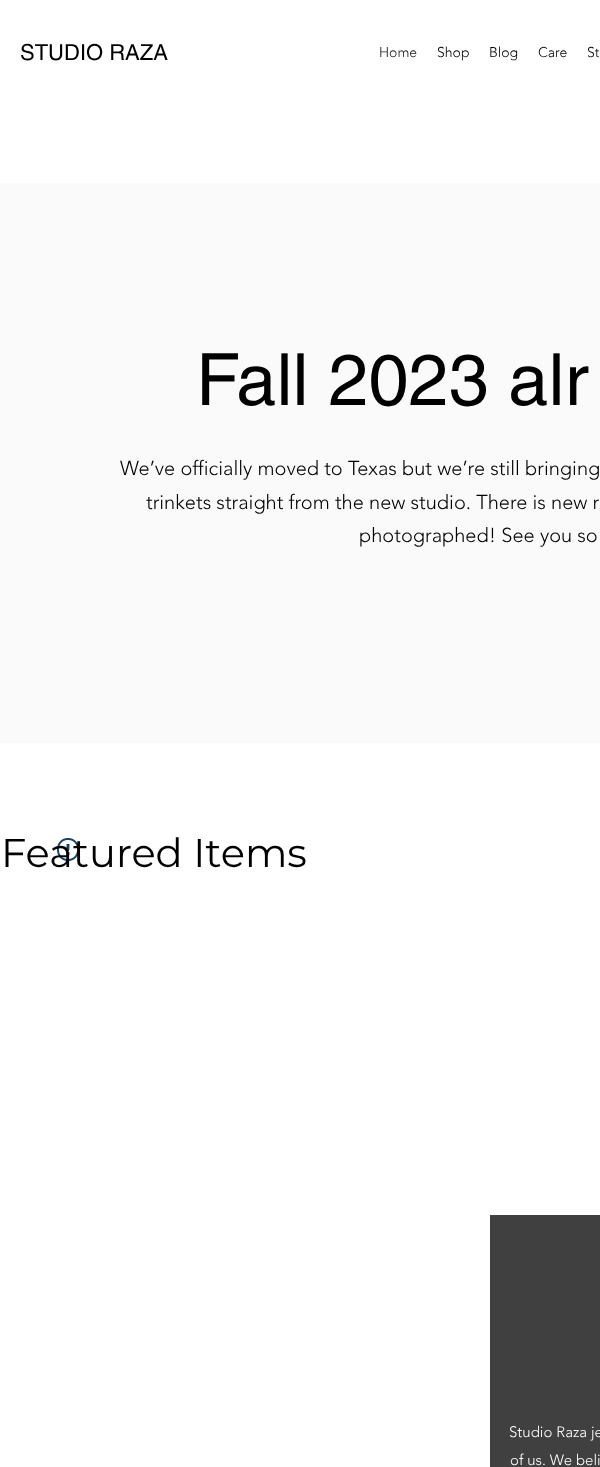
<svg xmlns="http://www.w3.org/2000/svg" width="600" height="1467">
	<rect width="100%" height="100%" fill="#FFFFFF" />
	<text x="20" y="60" font-family="helvetica" font-size="22" fill="#000000">STUDIO RAZA</text>
	<text x="379" y="57" font-family="'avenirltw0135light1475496'" font-size="14" font-weight="300" fill="#191919">Home</text>
	<g font-family="'avenirltw0135light1475496'" font-size="14" font-weight="300" fill="#000000">
		<text x="437" y="57">Shop</text>
		<text x="489" y="57">Blog</text>
		<text x="538" y="57">Care</text>
		<text x="587" y="57">St</text>
	</g>
	<rect x="0" y="183" width="600" height="560" fill="#FAFAFA" />
	<text x="196" y="405" font-family="helvetica" font-size="72" fill="#000000">Fall 2023 alr</text>
	<g font-family="'avenirltw0135light1475496'" font-size="20" font-weight="300" fill="#000000">
		<text x="120" y="475">We’ve officially moved to Texas but we’re still bringing</text>
		<text x="146" y="509">trinkets straight from the new studio. There is new r</text>
		<text x="359" y="542">photographed! See you so</text>
	</g>
	<image x="57" y="838" width="22" height="23" href="assets/img1.png" />
	<text x="1" y="867" font-family="Montserrat" font-size="40" fill="#000000">Featured Items</text>
	<rect x="490" y="1215" width="110" height="252" fill="#404040" />
	<g font-family="'avenirltw0135light1475496'" font-size="15" font-weight="300" fill="#FFFFFF">
		<text x="509" y="1437">Studio Raza je</text>
		<text x="510" y="1465">of us. We beli</text>
	</g>
</svg>
